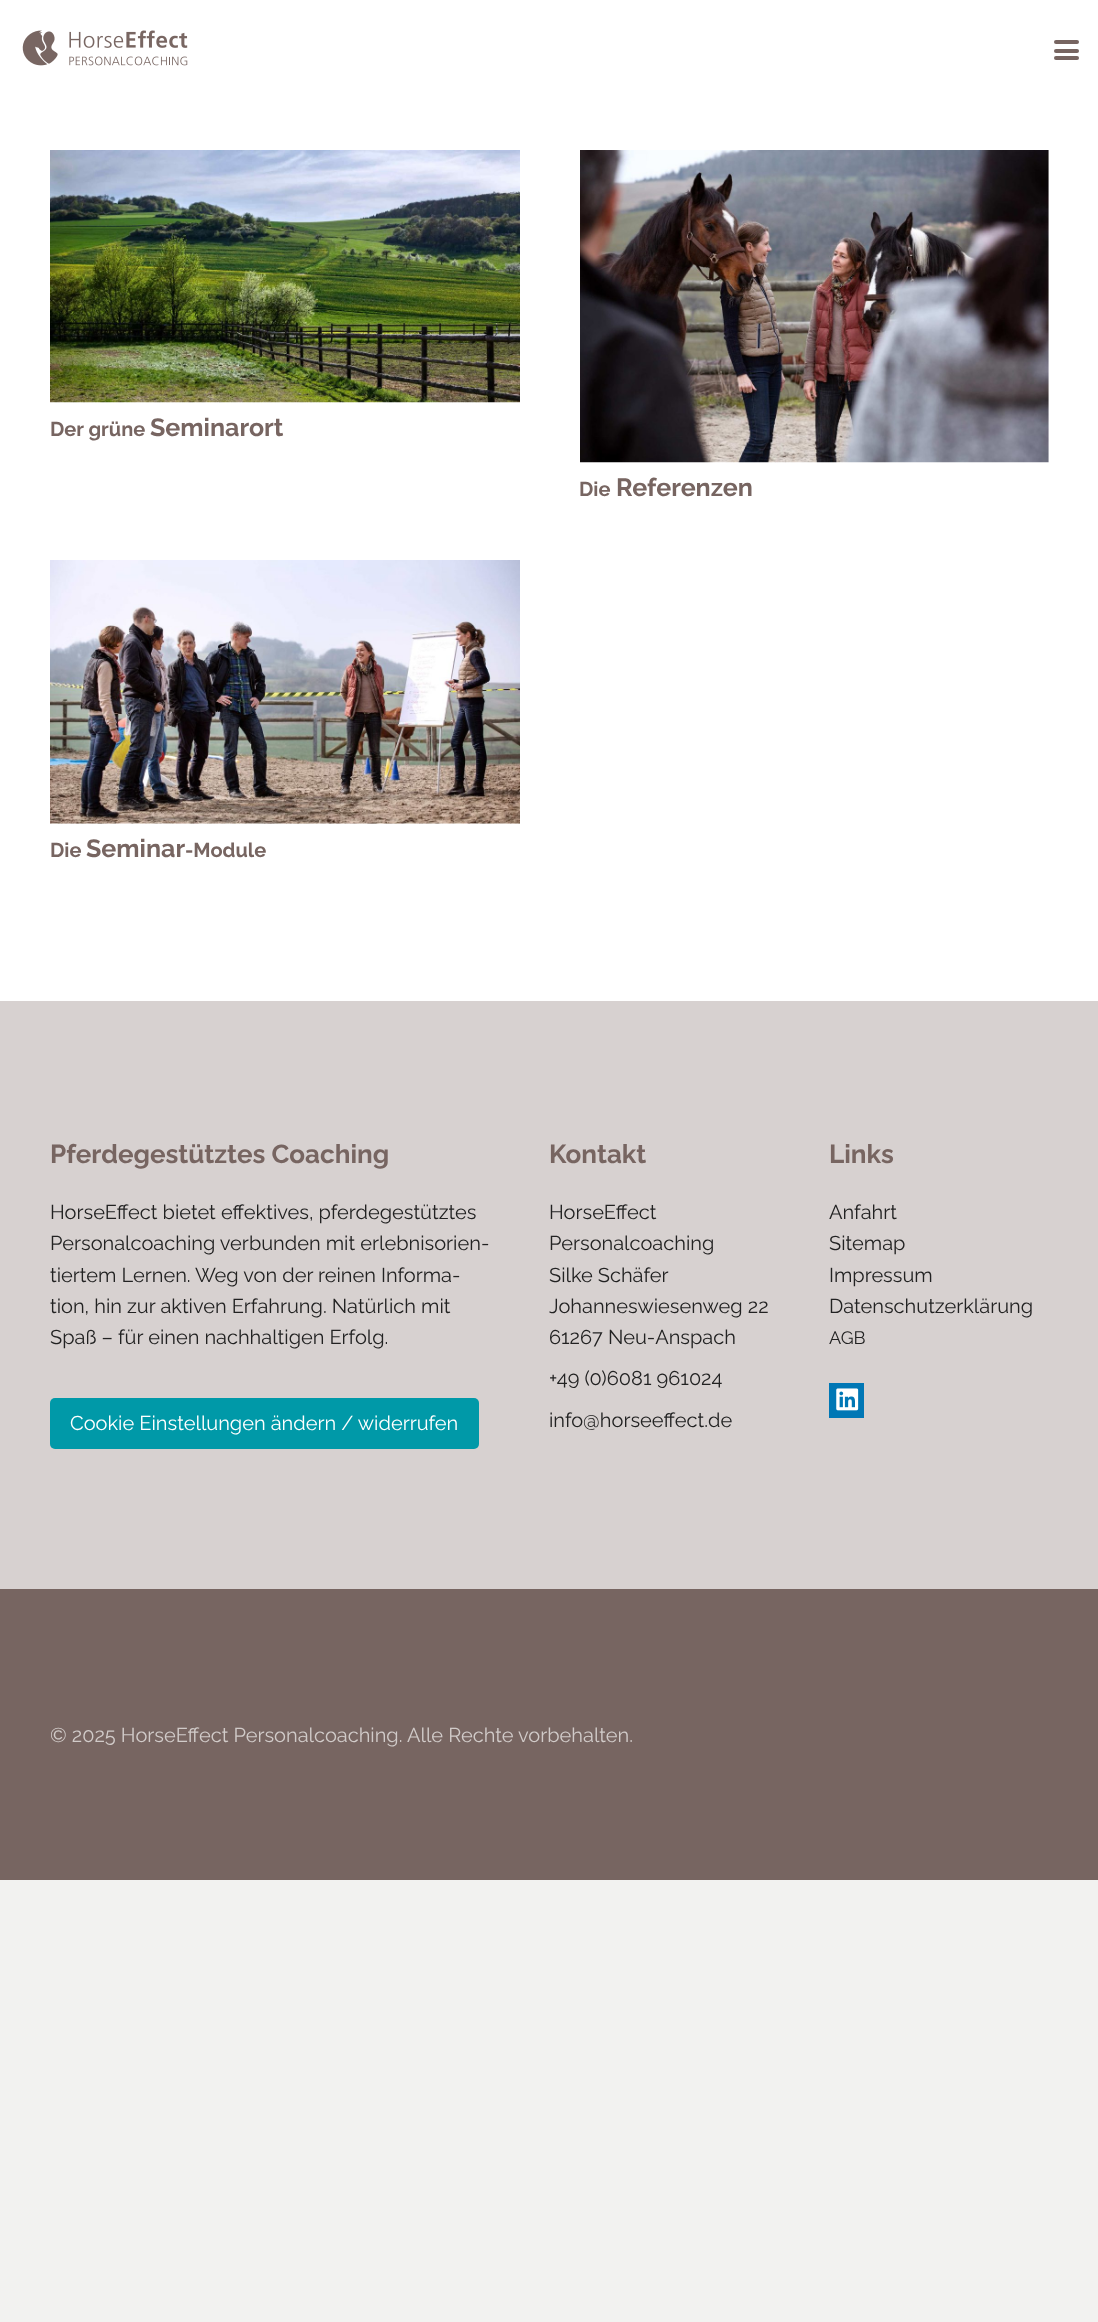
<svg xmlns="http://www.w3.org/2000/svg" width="1098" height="2322">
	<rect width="100%" height="100%" fill="#F2F2F0" />
	<rect x="0" y="0" width="1098" height="1001" fill="#FFFFFF" />
	<image x="22" y="30" width="166" height="36" href="assets/img1.png" />
	<rect x="1054" y="49" width="25" height="4" rx="2" fill="#776561" />
	<rect x="1054" y="40" width="25" height="4" rx="2" fill="#776561" />
	<rect x="1054" y="56" width="25" height="4" rx="2" fill="#776561" />
	<image x="50" y="150" width="470" height="253" href="assets/img2.png" />
	<text x="50" y="436" font-family="Raleway" font-size="20" font-weight="700" fill="#776561">Der grüne</text>
	<text x="150" y="436" font-family="Raleway" font-size="25" font-weight="700" fill="#776561">Seminarort</text>
	<image x="580" y="150" width="469" height="313" href="assets/img3.png" />
	<text x="579" y="496" font-family="Raleway" font-size="20" font-weight="700" fill="#776561">Die</text>
	<text x="616" y="496" font-family="Raleway" font-size="25" font-weight="700" fill="#776561">Referenzen</text>
	<image x="50" y="560" width="470" height="264" href="assets/img4.png" />
	<text x="50" y="857" font-family="Raleway" font-size="20" font-weight="700" fill="#776561">Die</text>
	<text x="86" y="857" font-family="Raleway" font-size="25" font-weight="700" fill="#776561">Seminar</text>
	<text x="185" y="857" font-family="Raleway" font-size="20" font-weight="700" fill="#776561">-Module</text>
	<rect x="0" y="1001" width="1098" height="588" fill="#D7D1D0" />
	<text x="50" y="1163" font-family="Raleway" font-size="26" font-weight="700" fill="#776561">Pferdegestütztes Coaching</text>
	<g font-family="Raleway" font-size="20" fill="#222222">
		<text x="50" y="1219">HorseEffect bietet effektives, pferdegestütztes</text>
		<text x="50" y="1250">Personalcoaching verbunden mit erlebnisorien-</text>
		<text x="50" y="1282">tiertem Lernen. Weg von der reinen Informa-</text>
		<text x="50" y="1313">tion, hin zur aktiven Erfahrung. Natürlich mit</text>
		<text x="50" y="1344">Spaß – für einen nachhaltigen Erfolg.</text>
	</g>
	<rect x="50" y="1398" width="429" height="51" rx="5" fill="#0099A8" />
	<text x="70" y="1430" font-family="Raleway" font-size="20" fill="#FFFFFF">Cookie Einstellungen ändern / widerrufen</text>
	<text x="549" y="1163" font-family="Raleway" font-size="26" font-weight="700" fill="#776561">Kontakt</text>
	<g font-family="Raleway" font-size="20" fill="#222222">
		<text x="549" y="1219">HorseEffect</text>
		<text x="549" y="1250">Personalcoaching</text>
		<text x="549" y="1282">Silke Schäfer</text>
		<text x="549" y="1313">Johanneswiesenweg 22</text>
		<text x="549" y="1344">61267 Neu-Anspach</text>
		<text x="549" y="1385">+49 (0)6081 961024</text>
		<text x="549" y="1427">info@horseeffect.de</text>
	</g>
	<text x="829" y="1163" font-family="Raleway" font-size="26" font-weight="700" fill="#776561">Links</text>
	<g font-family="Raleway" font-size="20" fill="#222222">
		<text x="829" y="1219">Anfahrt</text>
		<text x="829" y="1250">Sitemap</text>
		<text x="829" y="1282">Impressum</text>
		<text x="829" y="1313">Datenschutzerklärung</text>
	</g>
	<text x="829" y="1344" font-family="Raleway" font-size="18" fill="#222222">AGB</text>
	<rect x="829" y="1383" width="35" height="35" fill="#0077B5" />
	<image x="836" y="1388" width="23" height="23" href="assets/img5.png" />
	<rect x="0" y="1589" width="1098" height="291" fill="#776561" />
	<text x="50" y="1742" font-family="Raleway" font-size="20" fill="#D1CBC9">© 2025 HorseEffect Personalcoaching. Alle Rechte vorbehalten.</text>
</svg>
